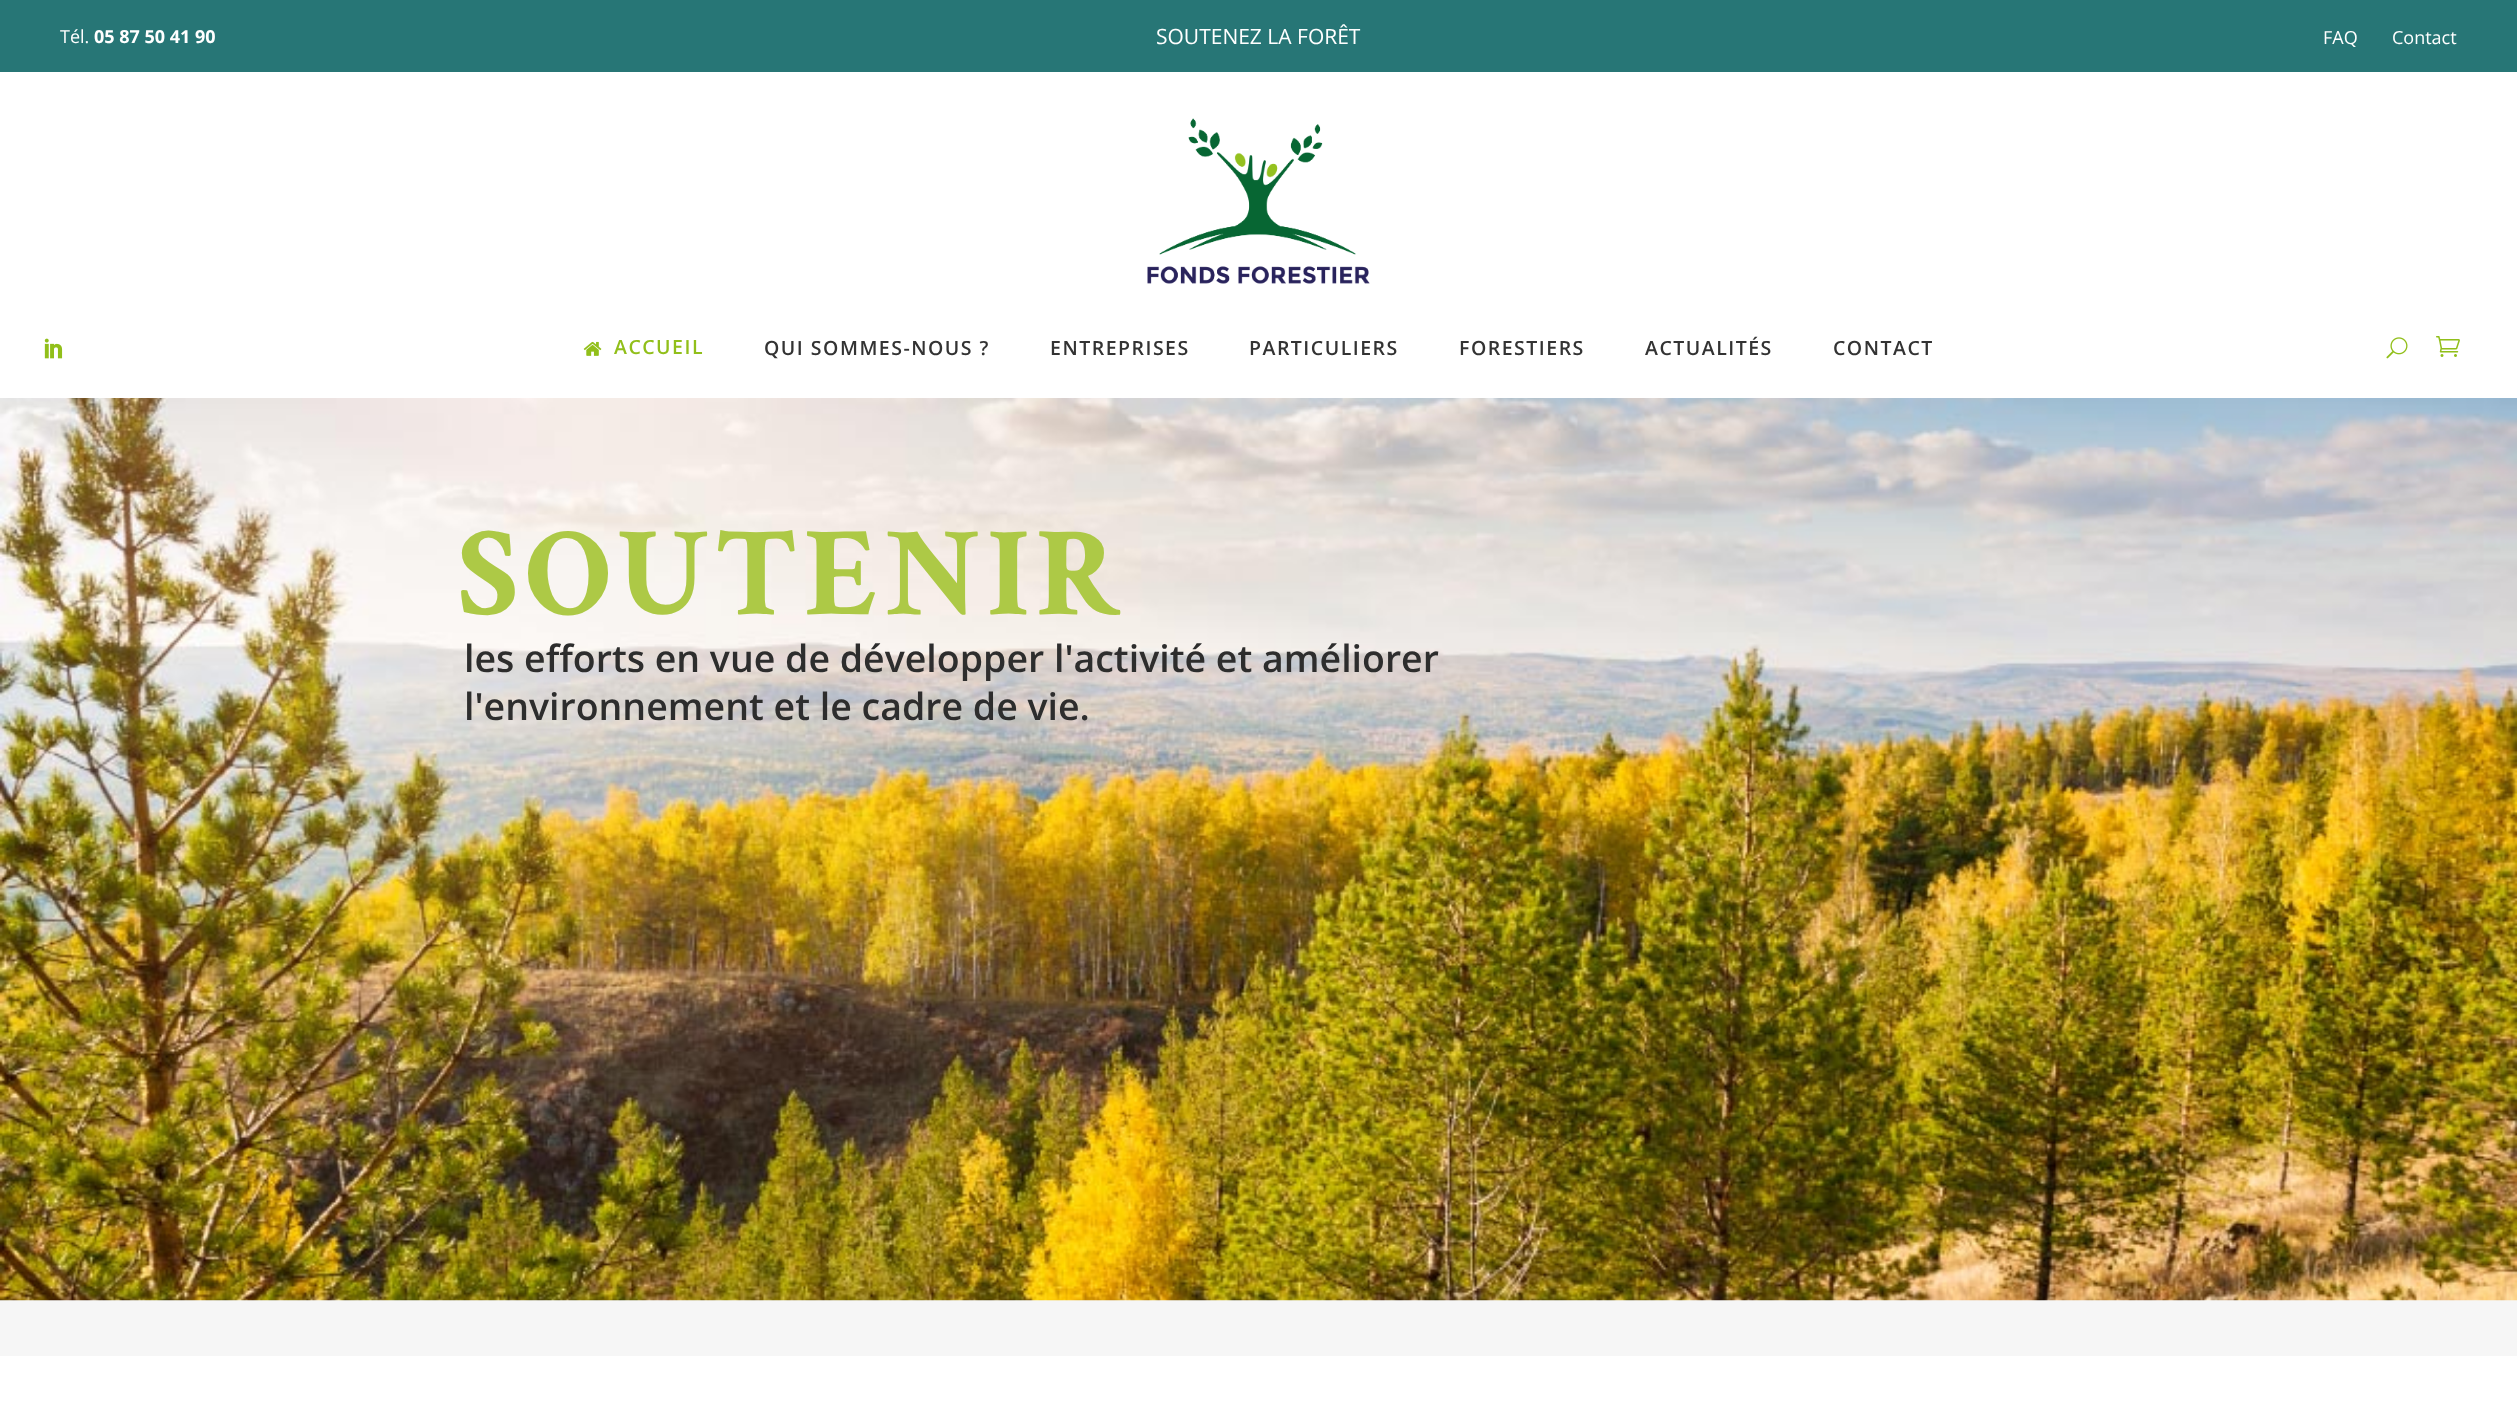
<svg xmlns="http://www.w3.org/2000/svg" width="2517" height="1422">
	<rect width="100%" height="100%" fill="#FFFFFF" />
	<rect x="0" y="0" width="2517" height="72" fill="#277676" />
	<text x="60" y="43" font-family="Open Sans" font-size="18" fill="#FFFFFF">Tél.</text>
	<text x="94" y="43" font-family="Open Sans" font-size="18" font-weight="700" fill="#FFFFFF">05 87 50 41 90</text>
	<text x="1156" y="44" font-family="Open Sans" font-size="21" fill="#FFFFFF">SOUTENEZ LA FORÊT</text>
	<g font-family="Open Sans" font-size="18" fill="#FFFFFF">
		<text x="2323" y="44">FAQ</text>
		<text x="2392" y="44">Contact</text>
	</g>
	<image x="1147" y="118" width="223" height="166" href="assets/img1.png" />
	<image x="44" y="338" width="19" height="21" href="assets/img2.png" />
	<image x="583" y="341" width="19" height="15" href="assets/img3.png" />
	<text x="614" y="354" font-family="Open Sans" font-size="19.5" font-weight="600" letter-spacing="1.5" fill="#91BF1A">ACCUEIL</text>
	<g font-family="Open Sans" font-size="19.5" font-weight="600" letter-spacing="1.5" fill="#333333">
		<text x="764" y="355">QUI SOMMES-NOUS ?</text>
		<text x="1050" y="355">ENTREPRISES</text>
		<text x="1249" y="355">PARTICULIERS</text>
		<text x="1459" y="355">FORESTIERS</text>
		<text x="1645" y="355">ACTUALITÉS</text>
		<text x="1833" y="355">CONTACT</text>
	</g>
	<image x="2386" y="337" width="22" height="22" href="assets/img4.png" />
	<image x="2436" y="336" width="24" height="21" href="assets/img5.png" />
	<rect x="0" y="1300" width="2517" height="56" fill="#F6F6F6" />
	<image x="0" y="398" width="2517" height="903" href="assets/img6.png" />
	<text x="458" y="614" font-family="Crimson Text" font-size="127.5" font-weight="700" letter-spacing="6" fill="#ADC946">SOUTENIR</text>
	<g font-family="Open Sans" font-size="37.5" font-weight="600" fill="#2D2D2D">
		<text x="464" y="672">les efforts en vue de développer l'activité et améliorer</text>
		<text x="464" y="720">l'environnement et le cadre de vie.</text>
	</g>
</svg>
